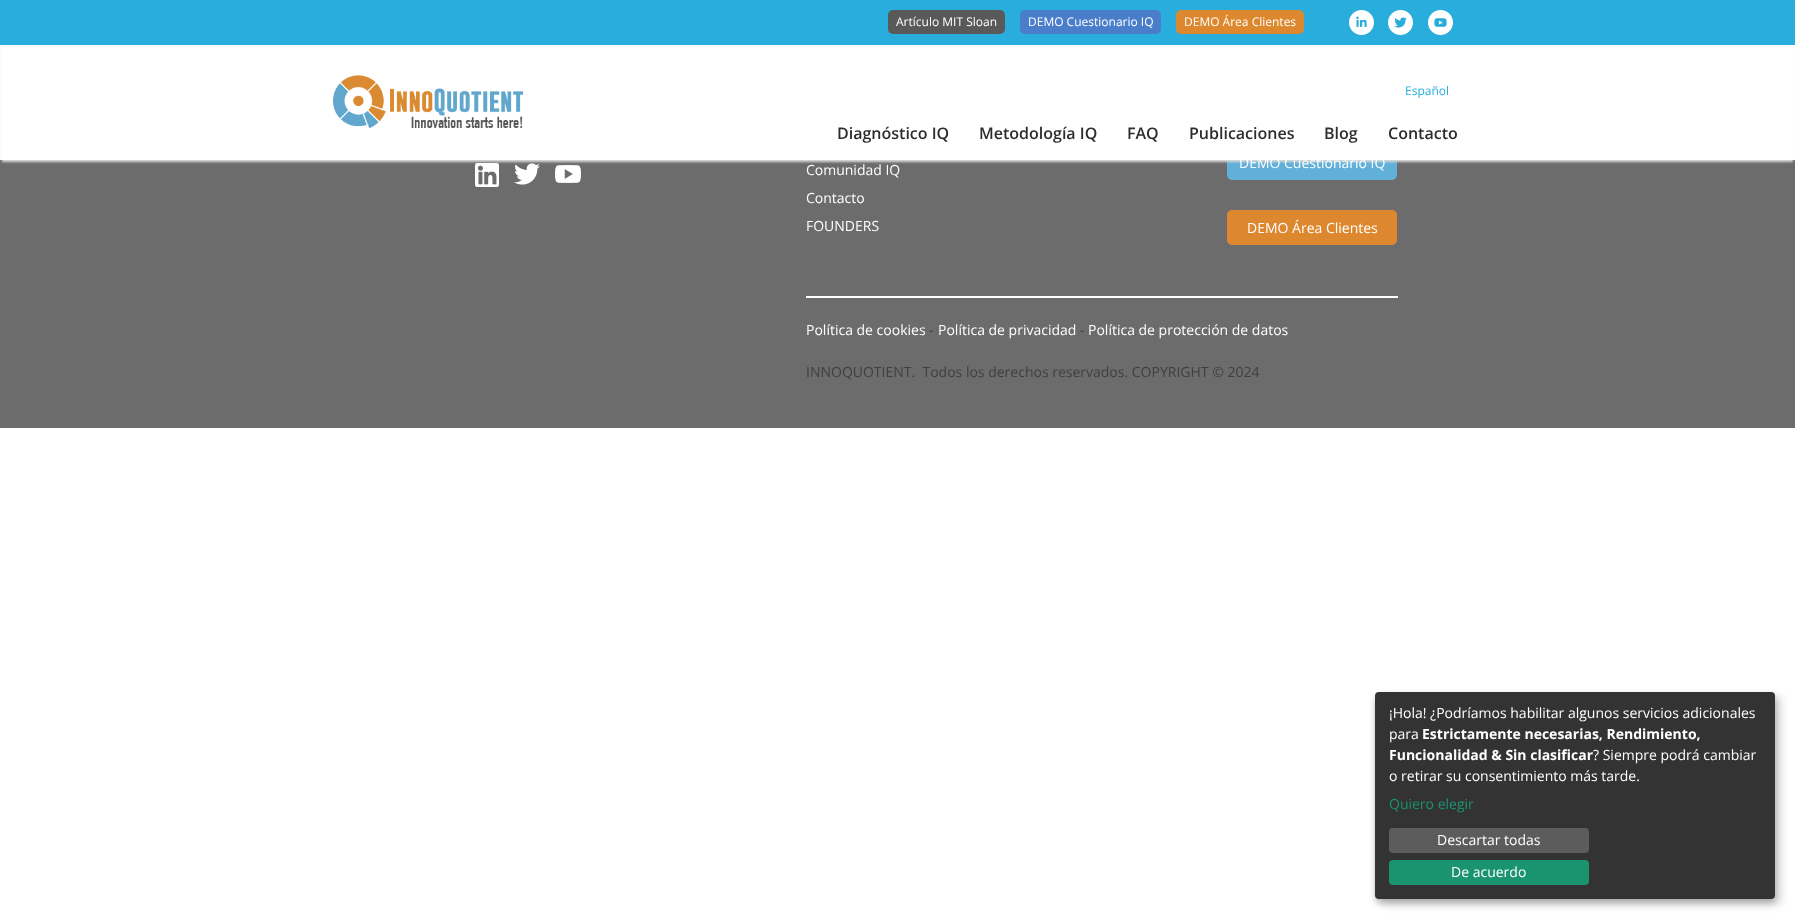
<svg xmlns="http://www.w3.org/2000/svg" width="1795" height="919">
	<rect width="100%" height="100%" fill="#FFFFFF" />
	<rect x="0" y="160" width="1795" height="268" fill="#6C6C6C" />
	<image x="475" y="163" width="24" height="24" href="assets/img5.png" />
	<image x="514" y="163" width="26" height="22" href="assets/img6.png" />
	<image x="555" y="165" width="26" height="18" href="assets/img7.png" />
	<rect x="1227" y="145" width="170" height="35" rx="5" fill="#60B0D9" />
	<rect x="2" y="6" width="1791" height="156" fill="#D8D8D8" filter="blur(1px)" />
	<rect x="1" y="45" width="1793" height="115" fill="#FFFFFF" />
	<rect x="0" y="0" width="1795" height="45" fill="#29ADDC" />
	<rect x="888" y="10" width="117" height="24" rx="5" fill="#595959" />
	<text x="896" y="26" font-family="Open Sans" font-size="12" fill="#FFFFFF">Artículo MIT Sloan</text>
	<rect x="1020" y="10" width="141" height="24" rx="5" fill="#4B7ECA" />
	<text x="1028" y="26" font-family="Open Sans" font-size="12" fill="#FFFFFF">DEMO Cuestionario IQ</text>
	<rect x="1176" y="10" width="128" height="24" rx="5" fill="#DD882F" />
	<text x="1184" y="26" font-family="Open Sans" font-size="12" fill="#FFFFFF">DEMO Área Clientes</text>
	<image x="1349" y="10" width="25" height="25" href="assets/img1.png" />
	<image x="1388" y="10" width="25" height="25" href="assets/img2.png" />
	<image x="1428" y="10" width="25" height="25" href="assets/img3.png" />
	<image x="333" y="75" width="190" height="53" href="assets/img4.png" />
	<text x="1405" y="95" font-family="Open Sans" font-size="12" fill="#29ADDC">Español</text>
	<g font-family="Open Sans" font-size="16" font-weight="600" fill="#2D2D2D">
		<text x="837" y="139">Diagnóstico IQ</text>
		<text x="979" y="139">Metodología IQ</text>
		<text x="1127" y="139">FAQ</text>
		<text x="1189" y="139">Publicaciones</text>
		<text x="1324" y="139">Blog</text>
		<text x="1388" y="139">Contacto</text>
	</g>
	<rect x="806" y="296" width="592" height="2" fill="#FFFFFF" />
	<g font-family="Open Sans" font-size="14" fill="#FFFFFF">
		<text x="806" y="175">Comunidad IQ</text>
		<text x="806" y="203">Contacto</text>
		<text x="806" y="231">FOUNDERS</text>
		<text x="1239" y="168">DEMO Cuestionario IQ</text>
	</g>
	<rect x="1227" y="210" width="170" height="35" rx="5" fill="#DD882F" />
	<g font-family="Open Sans" font-size="14" fill="#FFFFFF">
		<text x="1247" y="233">DEMO Área Clientes</text>
		<text x="806" y="335">Política de cookies</text>
	</g>
	<text x="929" y="335" font-family="Open Sans" font-size="14" fill="#404040">-</text>
	<text x="938" y="335" font-family="Open Sans" font-size="14" fill="#FFFFFF">Política de privacidad</text>
	<text x="1080" y="335" font-family="Open Sans" font-size="14" fill="#404040">-</text>
	<text x="1088" y="335" font-family="Open Sans" font-size="14" fill="#FFFFFF">Política de protección de datos</text>
	<text x="806" y="377" font-family="Open Sans" font-size="14" fill="#404040" xml:space="preserve">INNOQUOTIENT.  Todos los derechos reservados. COPYRIGHT © 2024</text>
	<rect x="1380" y="697" width="400" height="207" rx="4" fill="#000000" fill-opacity="0.19" filter="blur(5px)" />
	<rect x="1375" y="696" width="400" height="207" rx="4" fill="#000000" fill-opacity="0.2" filter="blur(3px)" />
	<rect x="1375" y="692" width="400" height="207" rx="4" fill="#333333" />
	<g font-family="Open Sans" font-size="14" fill="#FFFFFF">
		<text x="1389" y="718">¡Hola! ¿Podríamos habilitar algunos servicios adicionales</text>
		<text x="1389" y="739">para</text>
	</g>
	<g font-family="Open Sans" font-size="14" font-weight="700" fill="#FFFFFF">
		<text x="1422" y="739">Estrictamente necesarias, Rendimiento,</text>
		<text x="1389" y="760">Funcionalidad &amp; Sin clasificar</text>
	</g>
	<g font-family="Open Sans" font-size="14" fill="#FFFFFF">
		<text x="1593" y="760">? Siempre podrá cambiar</text>
		<text x="1389" y="781">o retirar su consentimiento más tarde.</text>
	</g>
	<text x="1389" y="809" font-family="Open Sans" font-size="14" fill="#1A936F">Quiero elegir</text>
	<rect x="1389" y="828" width="200" height="25" rx="4" fill="#5C5C5C" />
	<text x="1437" y="845" font-family="Open Sans" font-size="14" fill="#FFFFFF">Descartar todas</text>
	<rect x="1389" y="860" width="200" height="25" rx="4" fill="#1A936F" />
	<text x="1451" y="877" font-family="Open Sans" font-size="14" fill="#FFFFFF">De acuerdo</text>
</svg>
